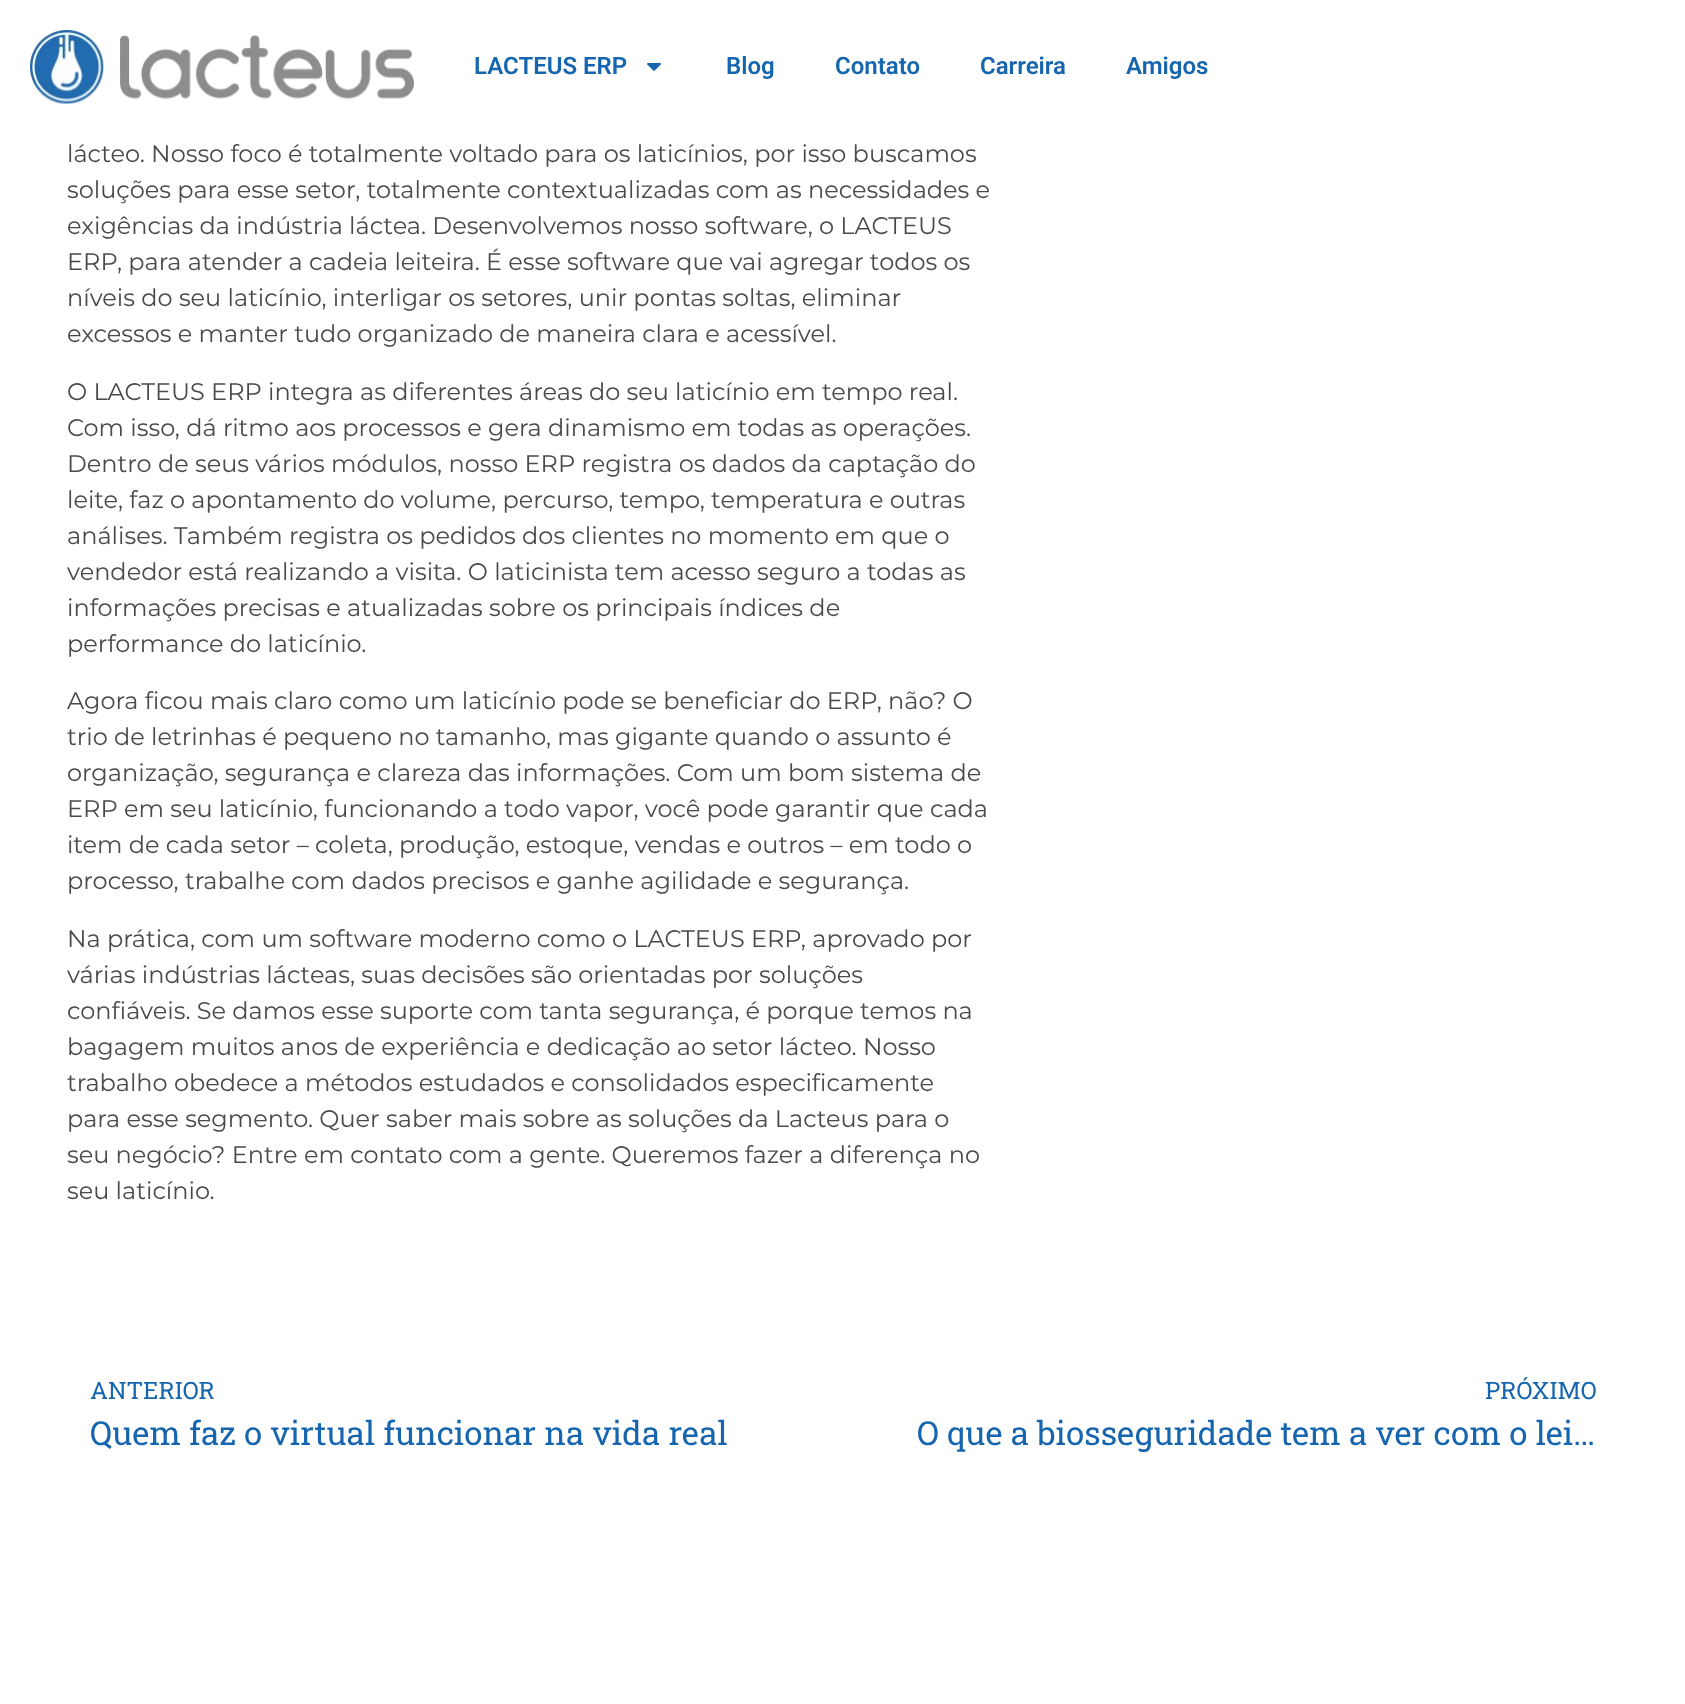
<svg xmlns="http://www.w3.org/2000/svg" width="1685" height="1704">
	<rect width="100%" height="100%" fill="#FFFFFF" />
	<image x="30" y="30" width="384" height="74" href="assets/img1.png" />
	<text x="474" y="74" font-family="Roboto" font-size="24" font-weight="600" fill="#1665AF">LACTEUS ERP</text>
	<image x="647" y="63" width="14" height="8" href="assets/img2.png" />
	<g font-family="Roboto" font-size="24" font-weight="600" fill="#1665AF">
		<text x="726" y="74">Blog</text>
		<text x="835" y="74">Contato</text>
		<text x="980" y="74">Carreira</text>
		<text x="1126" y="74">Amigos</text>
	</g>
	<g font-family="Montserrat" font-size="24" fill="#4A4A4A">
		<text x="67" y="162">lácteo. Nosso foco é totalmente voltado para os laticínios, por isso buscamos</text>
		<text x="67" y="198">soluções para esse setor, totalmente contextualizadas com as necessidades e</text>
		<text x="67" y="234">exigências da indústria láctea. Desenvolvemos nosso software, o LACTEUS</text>
		<text x="67" y="270">ERP, para atender a cadeia leiteira. É esse software que vai agregar todos os</text>
		<text x="67" y="306">níveis do seu laticínio, interligar os setores, unir pontas soltas, eliminar</text>
		<text x="67" y="342">excessos e manter tudo organizado de maneira clara e acessível.</text>
		<text x="67" y="400">O LACTEUS ERP integra as diferentes áreas do seu laticínio em tempo real.</text>
		<text x="67" y="436">Com isso, dá ritmo aos processos e gera dinamismo em todas as operações.</text>
		<text x="67" y="472">Dentro de seus vários módulos, nosso ERP registra os dados da captação do</text>
		<text x="67" y="508">leite, faz o apontamento do volume, percurso, tempo, temperatura e outras</text>
		<text x="67" y="544">análises. Também registra os pedidos dos clientes no momento em que o</text>
		<text x="67" y="580">vendedor está realizando a visita. O laticinista tem acesso seguro a todas as</text>
		<text x="67" y="616">informações precisas e atualizadas sobre os principais índices de</text>
		<text x="67" y="652">performance do laticínio.</text>
		<text x="67" y="709">Agora ficou mais claro como um laticínio pode se beneficiar do ERP, não? O</text>
		<text x="67" y="745">trio de letrinhas é pequeno no tamanho, mas gigante quando o assunto é</text>
		<text x="67" y="781">organização, segurança e clareza das informações. Com um bom sistema de</text>
		<text x="67" y="817">ERP em seu laticínio, funcionando a todo vapor, você pode garantir que cada</text>
		<text x="67" y="853">item de cada setor – coleta, produção, estoque, vendas e outros – em todo o</text>
		<text x="67" y="889">processo, trabalhe com dados precisos e ganhe agilidade e segurança.</text>
		<text x="67" y="947">Na prática, com um software moderno como o LACTEUS ERP, aprovado por</text>
		<text x="67" y="983">várias indústrias lácteas, suas decisões são orientadas por soluções</text>
		<text x="67" y="1019">confiáveis. Se damos esse suporte com tanta segurança, é porque temos na</text>
		<text x="67" y="1055">bagagem muitos anos de experiência e dedicação ao setor lácteo. Nosso</text>
		<text x="67" y="1091">trabalho obedece a métodos estudados e consolidados especificamente</text>
		<text x="67" y="1127">para esse segmento. Quer saber mais sobre as soluções da Lacteus para o</text>
		<text x="67" y="1163">seu negócio? Entre em contato com a gente. Queremos fazer a diferença no</text>
		<text x="67" y="1199">seu laticínio.</text>
	</g>
	<text x="90" y="1399" font-family="Roboto Slab" font-size="24" fill="#1665AF">ANTERIOR</text>
	<text x="90" y="1445" font-family="Roboto Slab" font-size="33" fill="#1665AF">Quem faz o virtual funcionar na vida real</text>
	<text x="1485" y="1399" font-family="Roboto Slab" font-size="24" fill="#1665AF">PRÓXIMO</text>
	<text x="917" y="1445" font-family="Roboto Slab" font-size="33" fill="#1665AF">O que a biosseguridade tem a ver com o lei…</text>
</svg>
